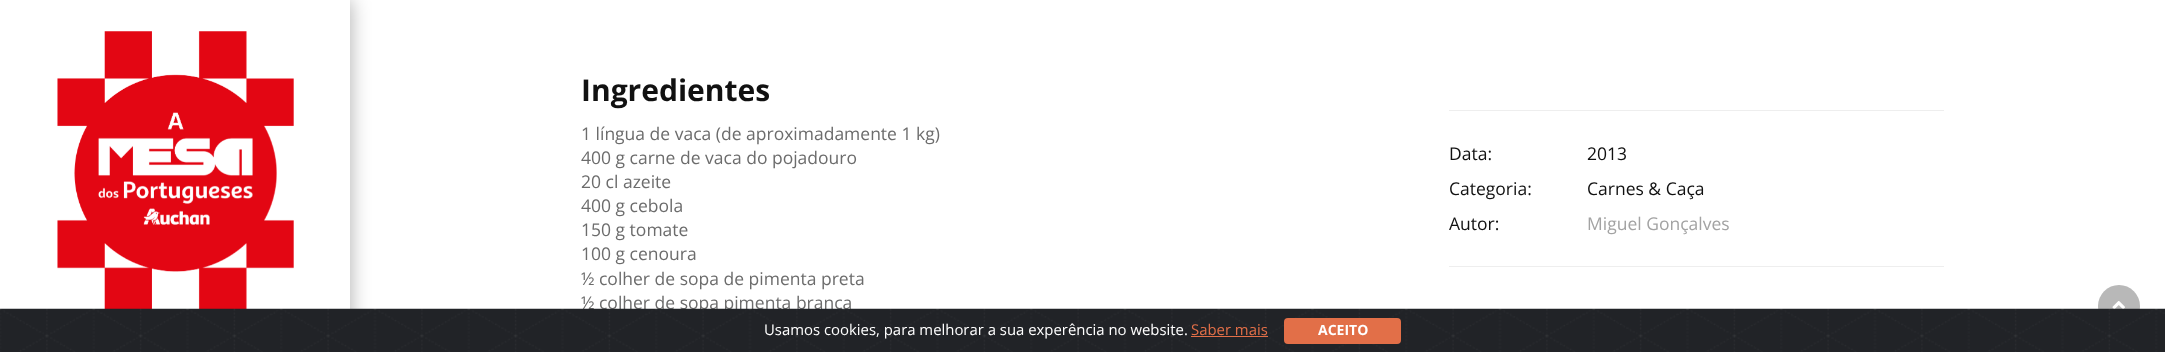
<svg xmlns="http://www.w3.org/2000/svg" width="2165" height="352">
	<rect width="100%" height="100%" fill="#FFFFFF" />
	<rect x="-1" y="-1" width="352" height="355" rx="6" fill="#000000" fill-opacity="0.3" filter="blur(9.5px)" />
	<rect x="0" y="0" width="350" height="309" fill="#FFFFFF" />
	<image x="57" y="31" width="237" height="278" href="assets/img1.png" />
	<text x="581" y="101" font-family="Open Sans" font-size="30" font-weight="700" fill="#111111">Ingredientes</text>
	<g font-family="Open Sans" font-size="17.5" fill="#6C6C6C">
		<text x="581" y="140">1 língua de vaca (de aproximadamente 1 kg)</text>
		<text x="581" y="164">400 g carne de vaca do pojadouro</text>
		<text x="581" y="188">20 cl azeite</text>
		<text x="581" y="212">400 g cebola</text>
		<text x="581" y="236">150 g tomate</text>
		<text x="581" y="260">100 g cenoura</text>
		<text x="581" y="285">½ colher de sopa de pimenta preta</text>
		<text x="581" y="309">½ colher de sopa pimenta branca</text>
	</g>
	<rect x="1449" y="110" width="495" height="1" fill="#EEEEEE" />
	<g font-family="Open Sans" font-size="17.5" fill="#111111">
		<text x="1449" y="160">Data:</text>
		<text x="1587" y="160">2013</text>
		<text x="1449" y="195">Categoria:</text>
		<text x="1587" y="195">Carnes &amp; Caça</text>
		<text x="1449" y="230">Autor:</text>
	</g>
	<text x="1587" y="230" font-family="Open Sans" font-size="17.5" fill="#A3A3A3">Miguel Gonçalves</text>
	<rect x="1449" y="266" width="495" height="1" fill="#EEEEEE" />
	<rect x="2098" y="285" width="42" height="43" rx="21" fill="#B8B8B8" />
	<image x="2112" y="301" width="13" height="8" href="assets/img2.png" />
	<image x="0" y="308" width="2165" height="44" href="assets/img3.png" />
	<text x="764" y="335" font-family="Open Sans" font-size="14.9" fill="#FFFFFF">Usamos cookies, para melhorar a sua experência no website.</text>
	<text x="1191" y="335" font-family="Open Sans" font-size="14.9" fill="#E26F48">Saber mais</text>
	<rect x="1191" y="336" width="77" height="1" fill="#E26F48" />
	<rect x="1284" y="318" width="117" height="26" rx="4" fill="#E26F48" />
	<text x="1318" y="335" font-family="Open Sans" font-size="14" font-weight="700" fill="#FFFFFF">ACEITO</text>
</svg>
